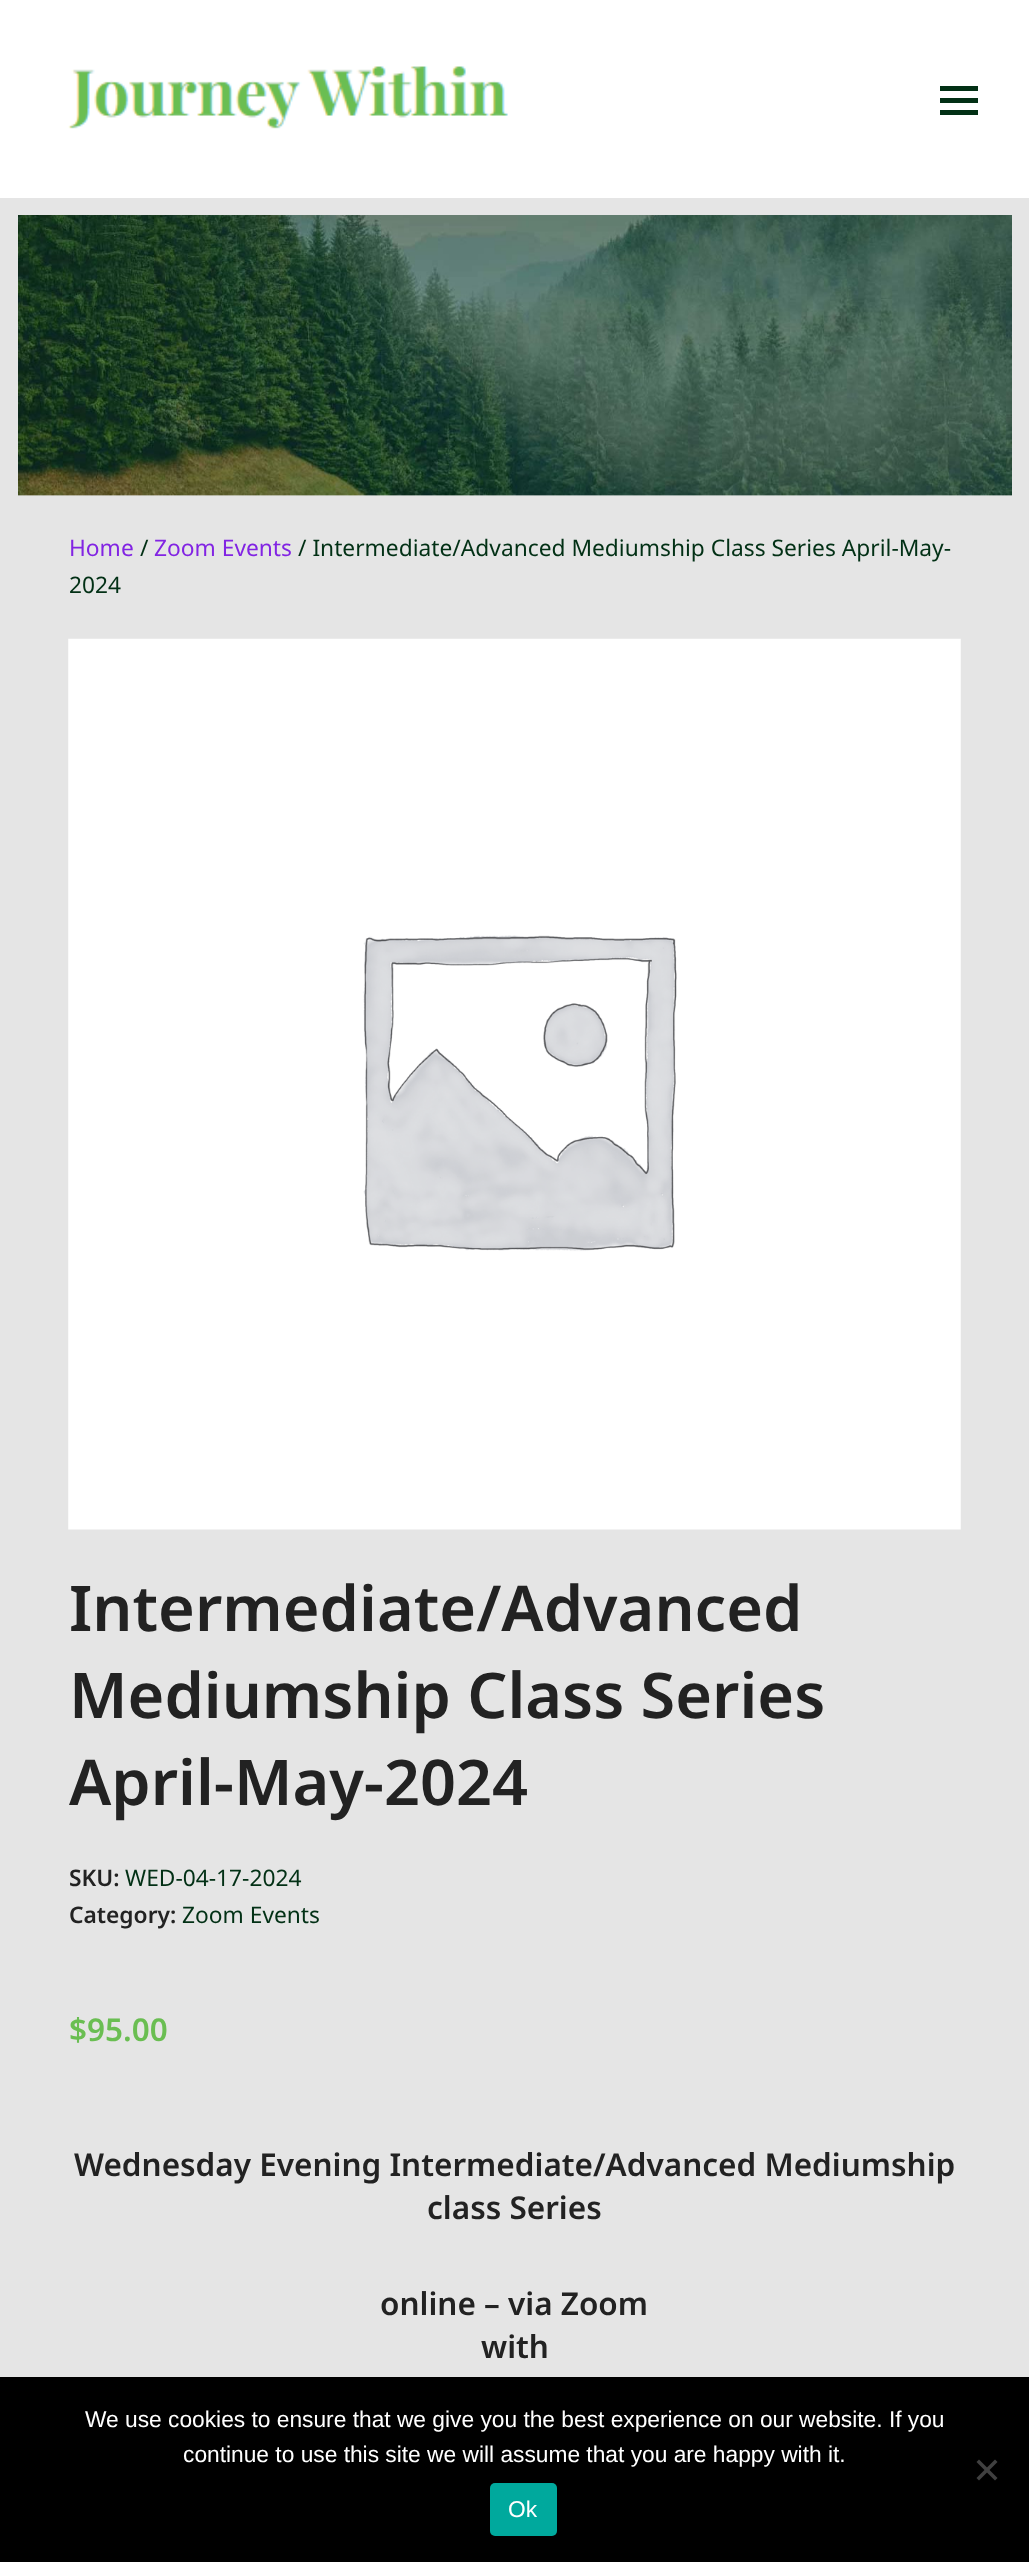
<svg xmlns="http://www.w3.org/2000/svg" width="1029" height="2562">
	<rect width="100%" height="100%" fill="#E5E5E5" />
	<rect x="0" y="0" width="1029" height="198" fill="#FFFFFF" />
	<image x="68" y="66" width="440" height="63" href="assets/img1.png" />
	<rect x="940" y="98" width="38" height="5" fill="#023015" />
	<rect x="940" y="86" width="38" height="5" fill="#023015" />
	<rect x="940" y="110" width="38" height="5" fill="#023015" />
	<image x="18" y="215" width="994" height="281" href="assets/img2.png" />
	<text x="69" y="556" font-family="Noto Sans" font-size="22.75" fill="#8224E3">Home</text>
	<text x="140" y="556" font-family="Noto Sans" font-size="22.75" fill="#023015">/</text>
	<text x="154" y="556" font-family="Noto Sans" font-size="22.75" fill="#8224E3">Zoom Events</text>
	<g font-family="Noto Sans" font-size="22.75" fill="#023015">
		<text x="298" y="556">/ Intermediate/Advanced Mediumship Class Series April-May-</text>
		<text x="69" y="593">2024</text>
	</g>
	<image x="68" y="638" width="893" height="892" href="assets/img3.png" />
	<g font-family="Noto Sans" font-size="63" font-weight="600" fill="#222222">
		<text x="69" y="1631">Intermediate/Advanced</text>
		<text x="69" y="1718">Mediumship Class Series</text>
		<text x="69" y="1805">April-May-2024</text>
	</g>
	<text x="69" y="1886" font-family="Noto Sans" font-size="22.75" font-weight="600" fill="#222222">SKU:</text>
	<text x="125" y="1886" font-family="Noto Sans" font-size="22.75" fill="#023015">WED-04-17-2024</text>
	<text x="69" y="1923" font-family="Noto Sans" font-size="22.75" font-weight="600" fill="#222222">Category:</text>
	<text x="182" y="1923" font-family="Noto Sans" font-size="22.75" fill="#023015">Zoom Events</text>
	<text x="69" y="2041" font-family="Noto Sans" font-size="31.5" font-weight="600" fill="#6ABE52">$95.00</text>
	<g font-family="Noto Sans" font-size="31.5" font-weight="600" fill="#222222">
		<text x="74" y="2176">Wednesday Evening Intermediate/Advanced Mediumship</text>
		<text x="427" y="2219">class Series</text>
		<text x="380" y="2315">online – via Zoom</text>
		<text x="481" y="2358">with</text>
	</g>
	<rect x="0" y="2377" width="1029" height="185" fill="#000000" />
	<g font-family="Liberation Sans" font-size="22.75" fill="#FFFFFF">
		<text x="85" y="2427">We use cookies to ensure that we give you the best experience on our website. If you</text>
		<text x="183" y="2462">continue to use this site we will assume that you are happy with it.</text>
	</g>
	<path d="M995 2459.5L997.5 2462L979 2480.5L976.5 2478Z" fill="#404040" />
	<path d="M976.5 2462L979 2459.5L997.5 2478L995 2480.5Z" fill="#404040" />
	<rect x="490" y="2483" width="67" height="53" rx="5" fill="#00A99D" />
	<text x="508" y="2517" font-family="Liberation Sans" font-size="22.75" fill="#FFFFFF">Ok</text>
</svg>
